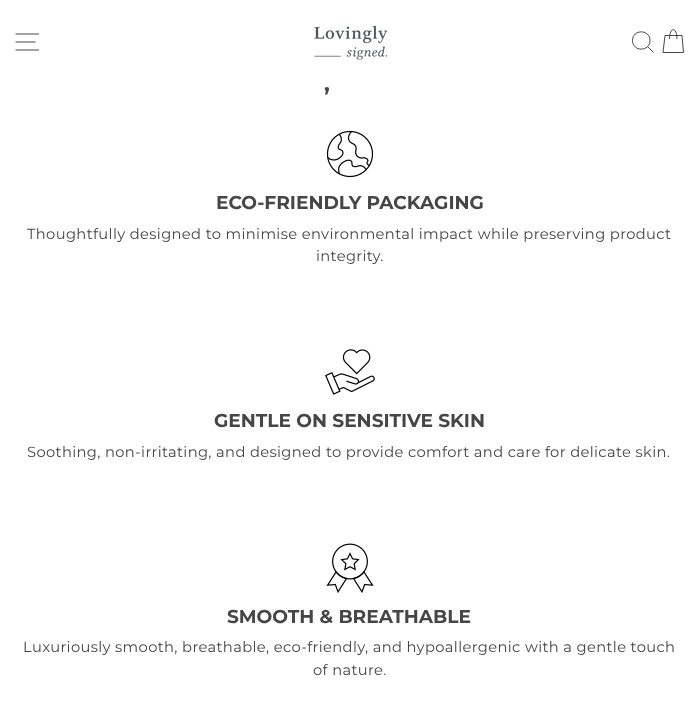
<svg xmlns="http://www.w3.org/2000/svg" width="699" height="705">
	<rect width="100%" height="100%" fill="#FFFFFF" />
	<rect x="0" y="0" width="699" height="84" fill="#000000" fill-opacity="0.2" filter="blur(0.5px)" />
	<rect x="0" y="0" width="699" height="84" fill="#FFFFFF" />
	<path d="M15.5 34H39M15.5 42H35.5M15.5 50H39" fill="none" stroke="#333333" stroke-width="0.9" />
	<image x="314" y="25" width="74" height="35" href="assets/img1.png" />
	<path d="M650 40.5C650 52 632.5 52 632.5 40.5C632.5 29 650 29 650 40.5ZM653.5 52.5L647.5 46.5M669.5 39C669.5 26.5 677 26.5 677 39M665 35.5H682L683.5 52.5H663Z" fill="none" stroke="#333333" stroke-width="0.9" />
	<text x="324" y="91" font-family="Montserrat" font-size="22" font-weight="700" fill="#474646">,</text>
	<image x="326" y="130" width="48" height="48" href="assets/img2.png" />
	<text x="216" y="209" font-family="Montserrat" font-size="18.6" font-weight="700" fill="#474646">ECO-FRIENDLY PACKAGING</text>
	<g font-family="Montserrat" font-size="14.7" letter-spacing="0.37" fill="#474646">
		<text x="27" y="239">Thoughtfully designed to minimise environmental impact while preserving product</text>
		<text x="316" y="261">integrity.</text>
	</g>
	<image x="325" y="349" width="50" height="46" href="assets/img3.png" />
	<text x="214" y="427" font-family="Montserrat" font-size="18.6" font-weight="700" fill="#474646">GENTLE ON SENSITIVE SKIN</text>
	<text x="27" y="457" font-family="Montserrat" font-size="14.7" letter-spacing="0.37" fill="#474646">Soothing, non-irritating, and designed to provide comfort and care for delicate skin.</text>
	<image x="326" y="543" width="48" height="50" href="assets/img4.png" />
	<text x="227" y="623" font-family="Montserrat" font-size="18.6" font-weight="700" fill="#474646">SMOOTH &amp; BREATHABLE</text>
	<g font-family="Montserrat" font-size="14.7" letter-spacing="0.37" fill="#474646">
		<text x="23" y="652">Luxuriously smooth, breathable, eco-friendly, and hypoallergenic with a gentle touch</text>
		<text x="313" y="675">of nature.</text>
	</g>
</svg>
